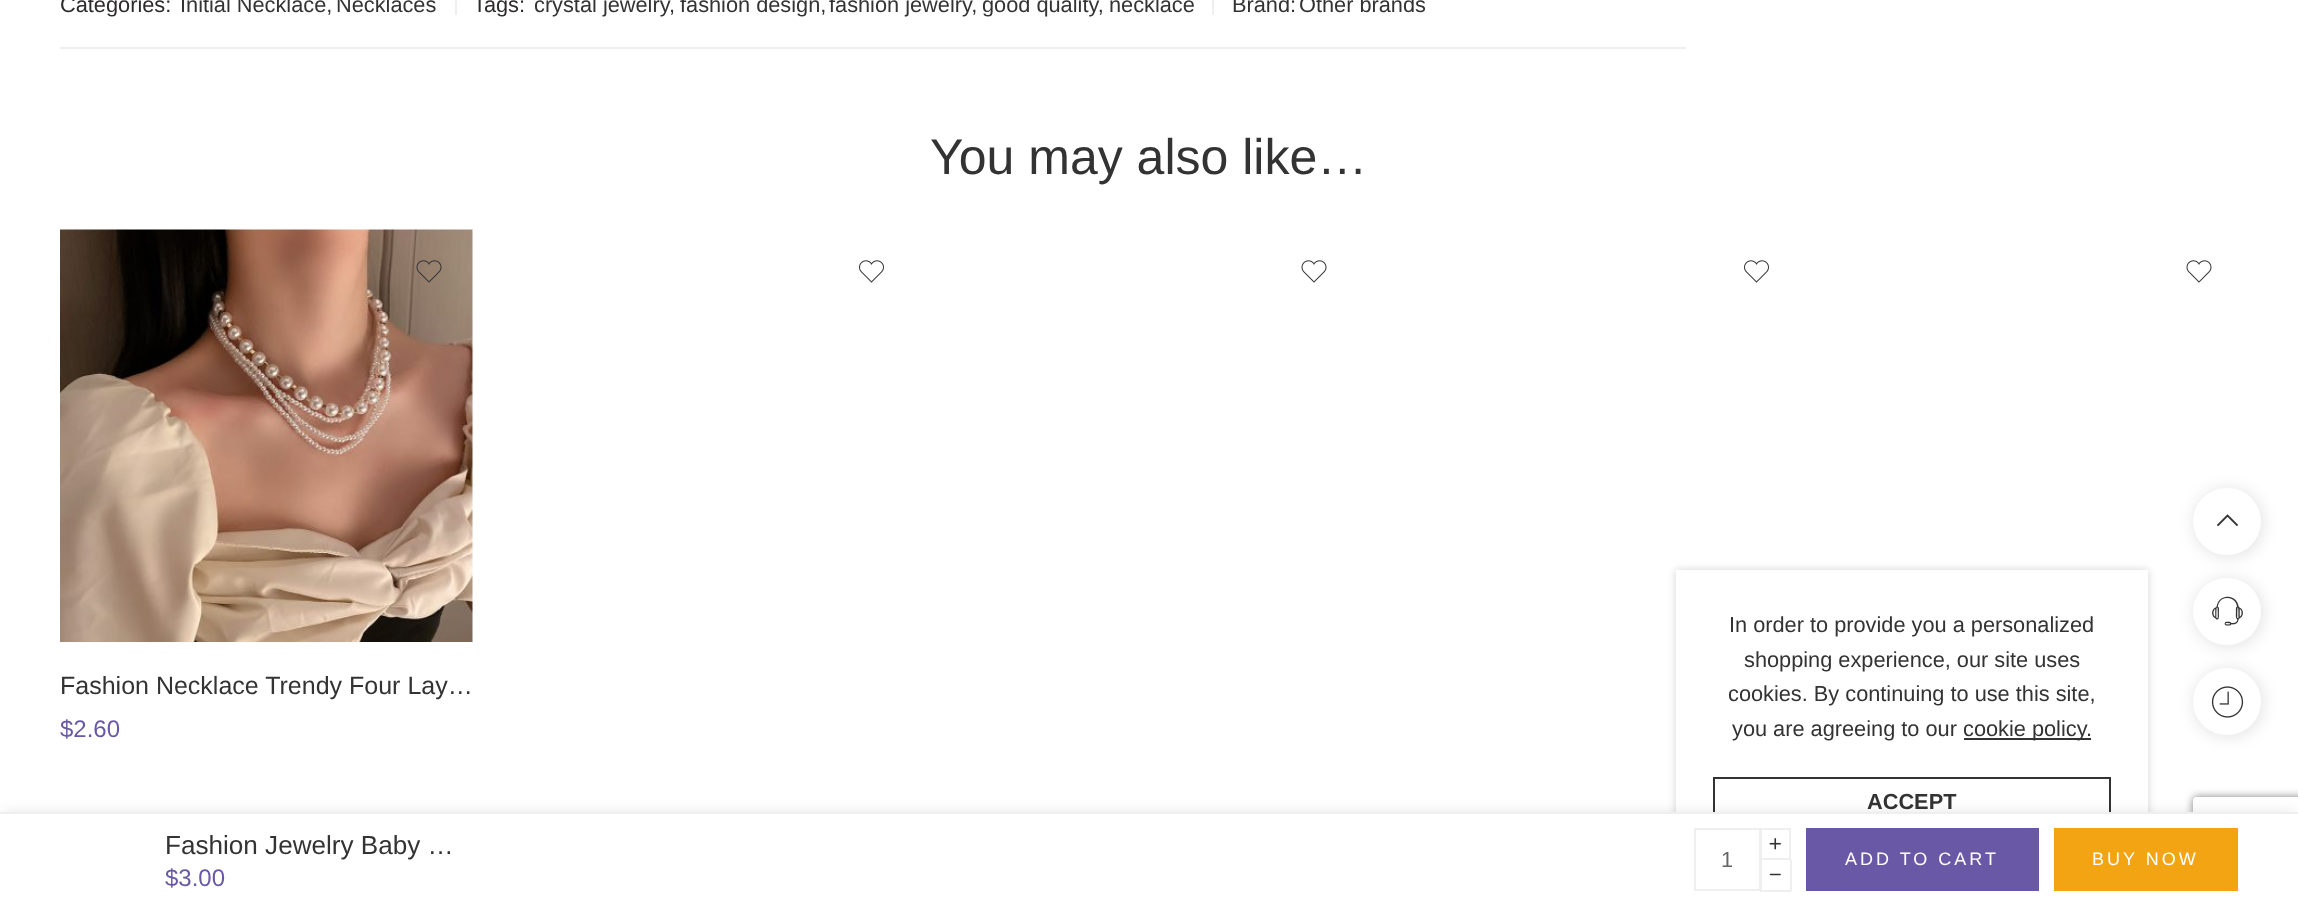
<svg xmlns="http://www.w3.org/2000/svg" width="2298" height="907">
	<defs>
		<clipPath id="clip1"><path d="M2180 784H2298V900H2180ZM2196 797H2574C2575.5 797 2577 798.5 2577 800V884C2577 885.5 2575.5 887 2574 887H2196C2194.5 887 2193 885.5 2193 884V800C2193 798.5 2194.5 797 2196 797Z" clip-rule="evenodd" /></clipPath>
	</defs>
	<rect width="100%" height="100%" fill="#FFFFFF" />
	<rect x="60" y="47" width="1626" height="2" fill="#EFEFEF" />
	<text x="60" y="12" font-family="Liberation Sans" font-size="21.75" fill="#2D2A2A">Categories:</text>
	<g font-family="Liberation Sans" font-size="21.75" fill="#333333">
		<text x="180" y="12">Initial Necklace,</text>
		<text x="336" y="12">Necklaces</text>
	</g>
	<rect x="455" y="0" width="2" height="15" fill="#EFEFEF" />
	<text x="473" y="12" font-family="Liberation Sans" font-size="21.75" fill="#2D2A2A">Tags:</text>
	<g font-family="Liberation Sans" font-size="21.75" fill="#333333">
		<text x="534" y="12">crystal jewelry,</text>
		<text x="680" y="12">fashion design,</text>
		<text x="829" y="12">fashion jewelry,</text>
		<text x="982" y="12">good quality,</text>
		<text x="1109" y="12">necklace</text>
	</g>
	<rect x="1212" y="0" width="2" height="15" fill="#EFEFEF" />
	<g font-family="Liberation Sans" font-size="21.75" fill="#333333">
		<text x="1232" y="12">Brand:</text>
		<text x="1299" y="12">Other brands</text>
	</g>
	<text x="930" y="174" font-family="Liberation Sans" font-size="50" fill="#333333">You may also like…</text>
	<image x="859" y="260" width="25" height="23" href="assets/img1.png" />
	<image x="1301" y="260" width="26" height="23" href="assets/img2.png" />
	<image x="1744" y="260" width="25" height="23" href="assets/img1.png" />
	<image x="2186" y="260" width="26" height="23" href="assets/img2.png" />
	<image x="60" y="229" width="413" height="413" href="assets/img3.png" />
	<image x="416" y="260" width="26" height="23" href="assets/img4.png" />
	<text x="60" y="694" font-family="Liberation Sans" font-size="25" fill="#333333">Fashion Necklace Trendy Four Lay…</text>
	<text x="60" y="737" font-family="Liberation Sans" font-size="24" fill="#6958A6">$2.60</text>
	<rect x="1676" y="570" width="472" height="293" fill="#000000" fill-opacity="0.17" filter="blur(4px)" />
	<rect x="1676" y="570" width="472" height="242" fill="#FFFFFF" />
	<g font-family="Liberation Sans" font-size="21.75" fill="#333333">
		<text x="1729" y="632">In order to provide you a personalized</text>
		<text x="1744" y="667">shopping experience, our site uses</text>
		<text x="1728" y="701">cookies. By continuing to use this site,</text>
		<text x="1732" y="736">you are agreeing to our</text>
	</g>
	<rect x="1964" y="738" width="127" height="2" fill="#333333" />
	<text x="1963" y="736" font-family="Liberation Sans" font-size="21.75" fill="#333333">cookie policy.</text>
	<rect x="1714" y="778" width="396" height="46" fill="none" stroke="#333333" stroke-width="2" />
	<text x="1867" y="809" font-family="Liberation Sans" font-size="21.75" font-weight="700" fill="#333333">ACCEPT</text>
	<rect x="2193" y="578" width="71" height="70" rx="35" fill="#000000" fill-opacity="0.1" filter="blur(7.5px)" />
	<rect x="2193" y="578" width="68" height="67" rx="33.5" fill="#FFFFFF" />
	<rect x="2193" y="488" width="71" height="70" rx="35" fill="#000000" fill-opacity="0.1" filter="blur(7.5px)" />
	<rect x="2193" y="488" width="68" height="67" rx="33.5" fill="#FFFFFF" />
	<image x="2216" y="514" width="23" height="13" href="assets/img5.png" />
	<image x="2212" y="596" width="31" height="30" href="assets/img6.png" />
	<rect x="2193" y="668" width="71" height="70" rx="35" fill="#000000" fill-opacity="0.1" filter="blur(7.5px)" />
	<rect x="2193" y="668" width="68" height="67" rx="33.5" fill="#FFFFFF" />
	<image x="2211" y="686" width="33" height="32" href="assets/img7.png" />
	<rect x="3" y="815" width="2292" height="90" fill="#000000" fill-opacity="0.15" filter="blur(7.5px)" />
	<g clip-path="url(#clip1)">
		<rect x="2193" y="797" width="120" height="90" rx="3" fill="#808080" filter="blur(4px)" />
	</g>
	<rect x="0" y="814" width="2298" height="93" fill="#FFFFFF" />
	<rect x="0" y="812" width="2298" height="2" fill="#EFEFEF" />
	<text x="165" y="854" font-family="Liberation Sans" font-size="26.1" fill="#333333">Fashion Jewelry Baby …</text>
	<text x="165" y="886" font-family="Liberation Sans" font-size="24" fill="#6958A6">$3.00</text>
	<rect x="1695" y="829" width="65" height="61" fill="none" stroke="#EFEFEF" stroke-width="2" />
	<text x="1721" y="867" font-family="Liberation Sans" font-size="21.75" fill="#666666">1</text>
	<rect x="1761" y="829" width="29" height="30" fill="none" stroke="#EFEFEF" stroke-width="2" />
	<image x="1769" y="838" width="12" height="12" href="assets/img8.png" />
	<rect x="1790" y="860" width="2" height="31" fill="#EFEFEF" />
	<rect x="1760" y="890" width="31" height="2" fill="#EFEFEF" />
	<rect x="1761" y="860" width="1" height="31" fill="#EFEFEF" />
	<path d="M1770.5 874.5H1780" fill="none" stroke="#333333" stroke-width="1.6" stroke-linecap="round" stroke-linejoin="round" />
	<rect x="1806" y="828" width="233" height="63" fill="#6958A6" />
	<text x="1845" y="865" font-family="Liberation Sans" font-size="18" letter-spacing="3" fill="#FFFFFF">ADD TO CART</text>
	<rect x="2054" y="828" width="184" height="63" fill="#F2A413" />
	<text x="2092" y="865" font-family="Liberation Sans" font-size="18" letter-spacing="3" fill="#FFFFFF">BUY NOW</text>
</svg>
